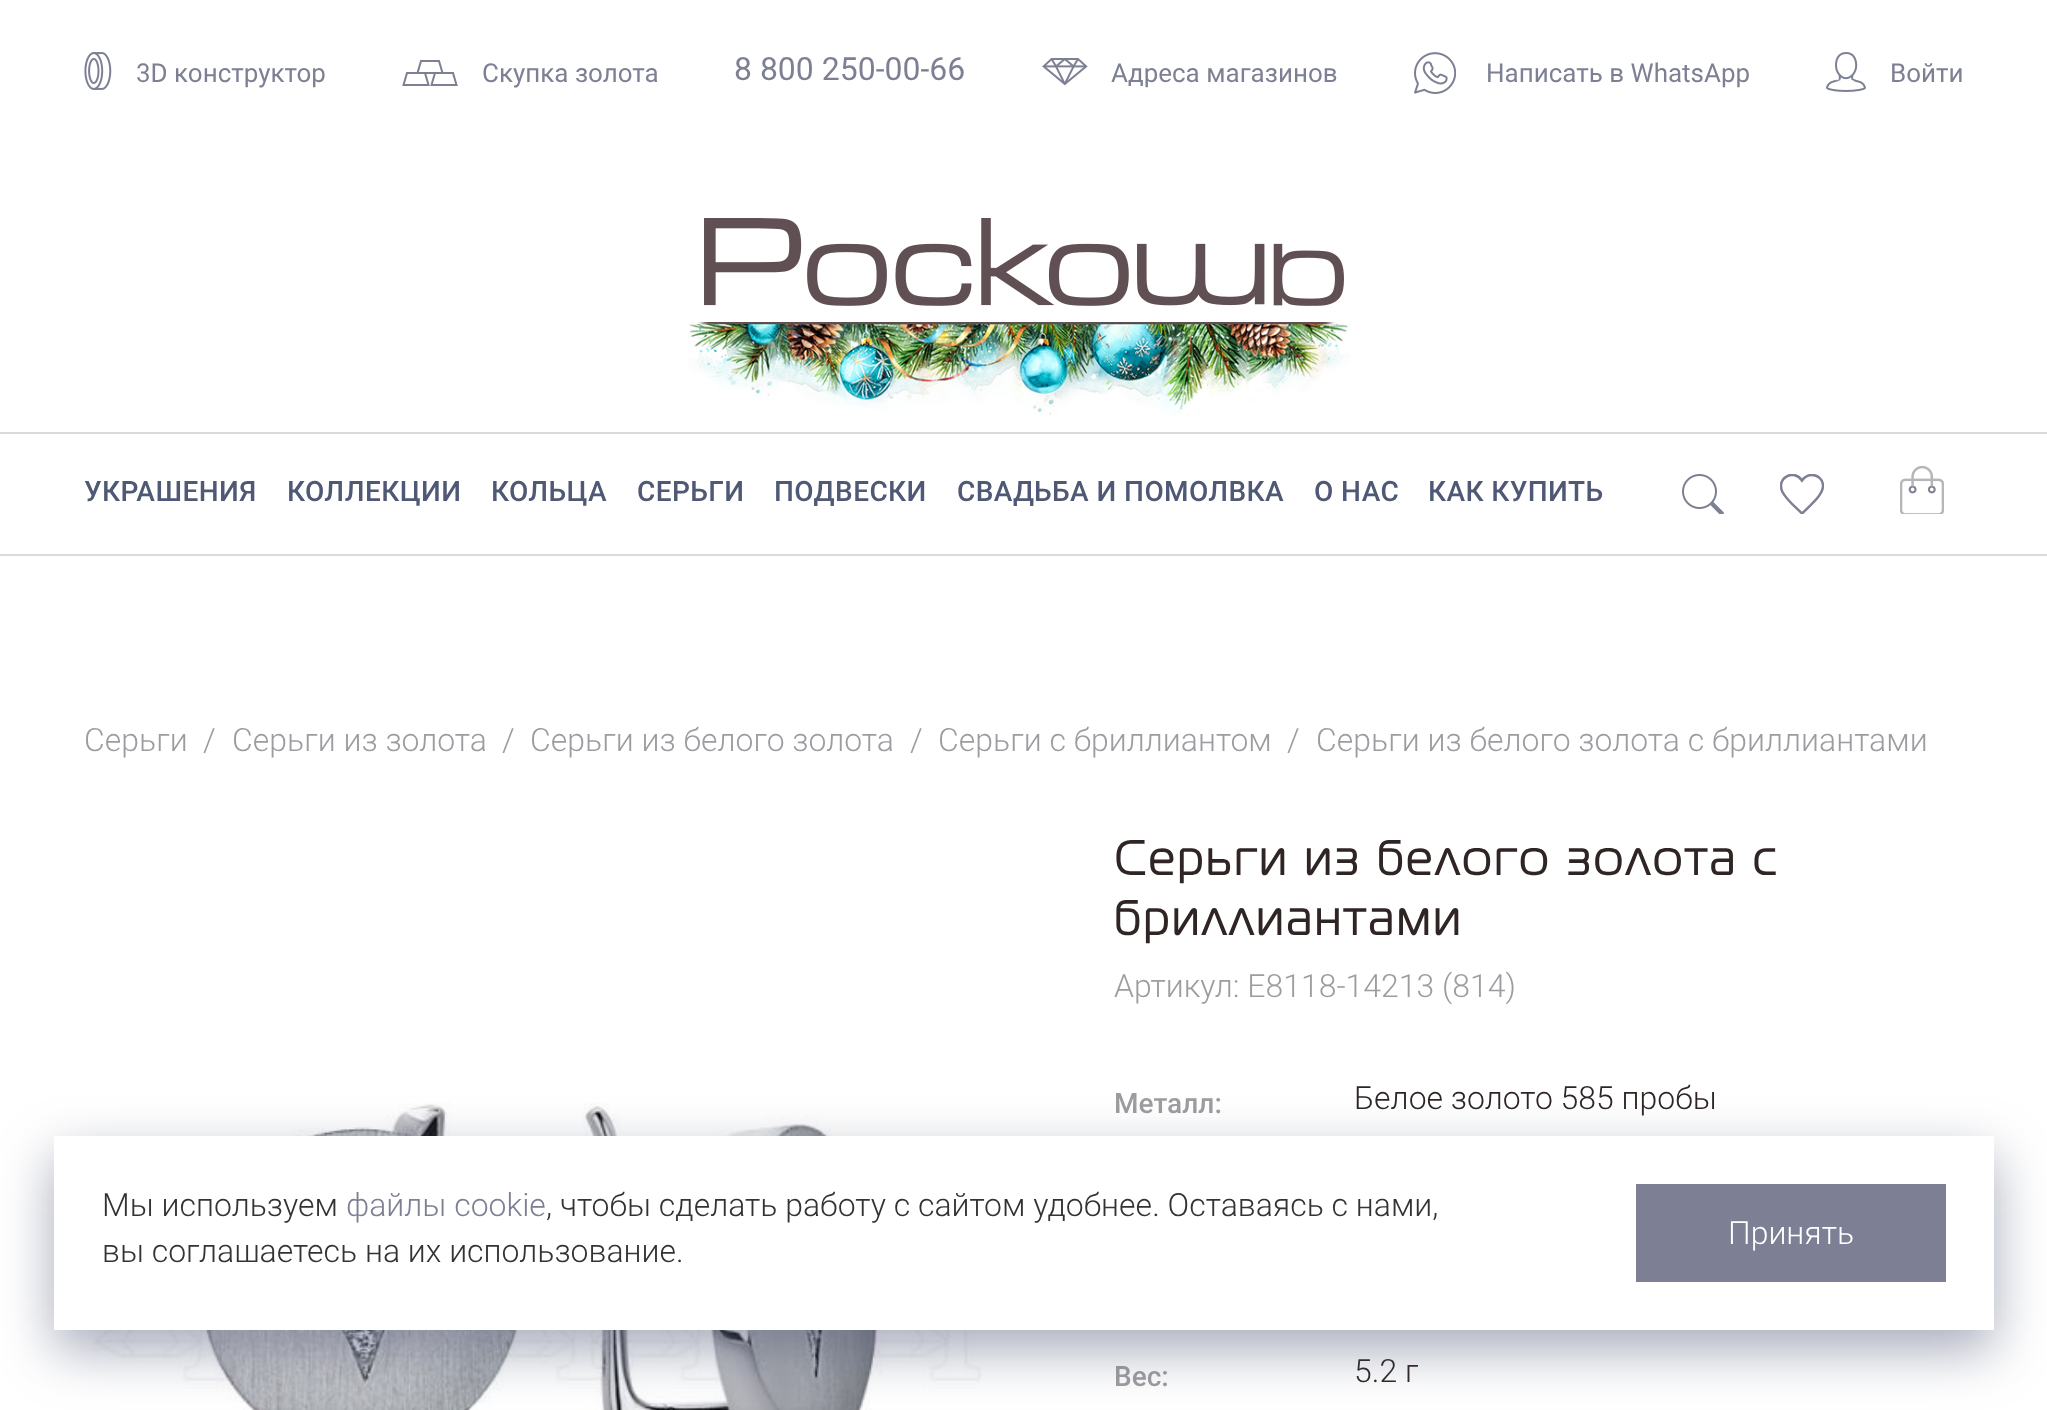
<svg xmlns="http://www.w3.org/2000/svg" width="2047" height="1410">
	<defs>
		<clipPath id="clip1"><rect x="1780" y="474" width="44" height="40" /></clipPath>
	</defs>
	<rect width="100%" height="100%" fill="#FFFFFF" />
	<image x="84" y="52" width="28" height="38" href="assets/img1.png" />
	<text x="136" y="82" font-family="Roboto" font-size="26" fill="#7D8093">3D конструктор</text>
	<path d="M417.5 73L421 61H439L442.5 73ZM431.5 85L435 73H453L456.5 85ZM403.5 85L407 73H425L428.5 85Z" fill="none" stroke="#7D8093" stroke-width="2" />
	<text x="482" y="82" font-family="Roboto" font-size="26" fill="#7D8093">Скупка золота</text>
	<text x="734" y="80" font-family="Roboto" font-size="32" fill="#7D8093">8 800 250-00-66</text>
	<image x="1042" y="58" width="46" height="28" href="assets/img2.png" />
	<text x="1111" y="82" font-family="Roboto" font-size="26" fill="#7D8093">Адреса магазинов</text>
	<image x="1414" y="52" width="42" height="42" href="assets/img3.png" />
	<text x="1486" y="82" font-family="Roboto" font-size="26" fill="#7D8093">Написать в WhatsApp</text>
	<image x="1826" y="52" width="40" height="40" href="assets/img4.png" />
	<text x="1890" y="82" font-family="Roboto" font-size="26" fill="#7D8093">Войти</text>
	<rect x="0" y="432" width="2047" height="2" fill="#DADADA" />
	<image x="704" y="218" width="640" height="88" href="assets/img5.png" />
	<image x="686" y="322" width="665" height="94" href="assets/img6.png" />
	<rect x="0" y="554" width="2047" height="2" fill="#DADADA" />
	<g font-family="Roboto" font-size="28" font-weight="500" letter-spacing="0.4" fill="#4F5875">
		<text x="84" y="501">УКРАШЕНИЯ</text>
		<text x="287" y="501">КОЛЛЕКЦИИ</text>
		<text x="491" y="501">КОЛЬЦА</text>
		<text x="637" y="501">СЕРЬГИ</text>
		<text x="774" y="501">ПОДВЕСКИ</text>
		<text x="957" y="501">СВАДЬБА И ПОМОЛВКА</text>
		<text x="1314" y="501">О НАС</text>
		<text x="1428" y="501">КАК КУПИТЬ</text>
	</g>
	<image x="1682" y="474" width="42" height="40" href="assets/img7.png" />
	<g clip-path="url(#clip1)">
		<path d="M1812 475C1808.5 475 1804.5 477 1802 480.5C1794.5 468.5 1775.5 477.5 1782.5 492C1787 500.5 1795.5 507 1802 513.5C1813.5 502.5 1823 494 1823 486C1823 479 1817.5 475 1812 475" fill="none" stroke="#7D7F94" stroke-width="2.5" />
	</g>
	<image x="1900" y="466" width="44" height="48" href="assets/img8.png" />
	<g font-family="Roboto" font-size="32" font-weight="300" fill="#9E9CA0">
		<text x="84" y="751">Серьги</text>
		<text x="203" y="751">/</text>
		<text x="232" y="751">Серьги из золота</text>
		<text x="502" y="751">/</text>
		<text x="530" y="751">Серьги из белого золота</text>
		<text x="910" y="751">/</text>
		<text x="938" y="751">Серьги с бриллиантом</text>
		<text x="1287" y="751">/</text>
		<text x="1316" y="751">Серьги из белого золота с бриллиантами</text>
	</g>
	<image x="93" y="1102" width="888" height="308" href="assets/img9.png" />
	<g font-family="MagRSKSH" font-size="48" font-weight="700" letter-spacing="4" fill="#2F2524">
		<text x="1114" y="875">Серьги из белого золота с</text>
		<text x="1114" y="935">бриллиантами</text>
	</g>
	<text x="1114" y="997" font-family="Roboto" font-size="32" font-weight="300" fill="#9E9CA0">Артикул: E8118-14213 (814)</text>
	<text x="1114" y="1113" font-family="Roboto" font-size="28" font-weight="500" fill="#9E9CA0">Металл:</text>
	<text x="1354" y="1109" font-family="Roboto" font-size="32" font-weight="300" fill="#2F2524">Белое золото 585 пробы</text>
	<text x="1114" y="1386" font-family="Roboto" font-size="28" font-weight="500" fill="#9E9CA0">Вес:</text>
	<text x="1354" y="1382" font-family="Roboto" font-size="32" font-weight="300" fill="#2F2524">5.2 г</text>
	<rect x="54" y="1156" width="1940" height="194" fill="#4F5875" fill-opacity="0.5" filter="blur(27px)" />
	<rect x="54" y="1136" width="1940" height="194" fill="#FFFFFF" />
	<text x="102" y="1216" font-family="Roboto" font-size="32" font-weight="300" fill="#333333">Мы используем</text>
	<text x="346" y="1216" font-family="Roboto" font-size="32" font-weight="300" fill="#7D8093">файлы cookie</text>
	<g font-family="Roboto" font-size="32" font-weight="300" fill="#333333">
		<text x="546" y="1216">, чтобы сделать работу с сайтом удобнее. Оставаясь с нами,</text>
		<text x="102" y="1262">вы соглашаетесь на их использование.</text>
	</g>
	<rect x="1636" y="1184" width="310" height="98" fill="#7D7F94" />
	<text x="1728" y="1244" font-family="Roboto" font-size="32" font-weight="300" fill="#FFFFFF">Принять</text>
</svg>
